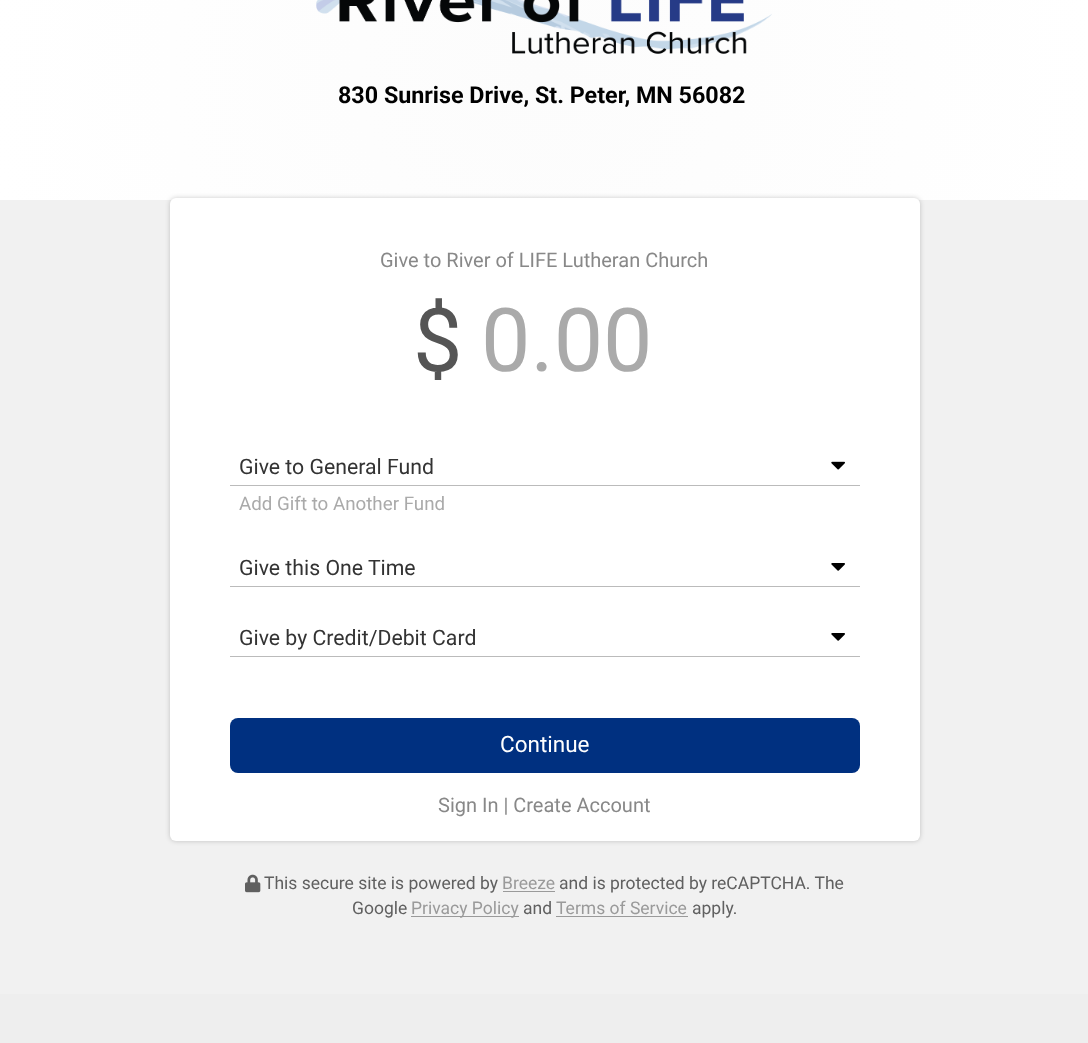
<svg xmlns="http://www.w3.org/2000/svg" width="1088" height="1043">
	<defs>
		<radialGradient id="g1" gradientUnits="userSpaceOnUse" cx="544" cy="75" r="559"><stop offset="0" stop-color="#FCFCFC" /><stop offset="1" stop-color="#FFFFFF" /></radialGradient>
	</defs>
	<rect width="100%" height="100%" fill="#EEEEEE" />
	<rect x="0" y="0" width="1088" height="200" fill="url(#g1)" />
	<image x="316" y="0" width="456" height="54" href="assets/img1.png" />
	<text x="338" y="103" font-family="Roboto" font-size="23.3" font-weight="700" fill="#000000">830 Sunrise Drive, St. Peter, MN 56082</text>
	<rect x="0" y="200" width="1088" height="794" fill="#F1F1F1" />
	<rect x="170" y="198" width="750" height="643" rx="6" fill="#000000" fill-opacity="0.2" filter="blur(2.5px)" />
	<rect x="170" y="198" width="750" height="643" rx="6" fill="#FFFFFF" />
	<text x="380" y="267" font-family="Roboto" font-size="20" fill="#888888">Give to River of LIFE Lutheran Church</text>
	<text x="413" y="371" font-family="Roboto" font-size="88" fill="#555555">$</text>
	<text x="481" y="371" font-family="Roboto" font-size="88" fill="#AAAAAA">0.00</text>
	<image x="831" y="461" width="14" height="9" href="assets/img2.png" />
	<text x="239" y="474" font-family="Roboto" font-size="21.25" fill="#333333">Give to General Fund</text>
	<rect x="230" y="485" width="630" height="1" fill="#BBBBBB" />
	<text x="239" y="510" font-family="Roboto" font-size="18.75" fill="#AAAAAA">Add Gift to Another Fund</text>
	<image x="831" y="563" width="14" height="8" href="assets/img3.png" />
	<text x="239" y="575" font-family="Roboto" font-size="21.25" fill="#333333">Give this One Time</text>
	<rect x="230" y="586" width="630" height="1" fill="#BBBBBB" />
	<image x="831" y="633" width="14" height="8" href="assets/img3.png" />
	<text x="239" y="645" font-family="Roboto" font-size="21.25" fill="#333333">Give by Credit/Debit Card</text>
	<rect x="230" y="656" width="630" height="1" fill="#BBBBBB" />
	<rect x="230" y="718" width="630" height="55" rx="8" fill="#003080" />
	<text x="500" y="752" font-family="Roboto" font-size="22.5" fill="#FFFFFF">Continue</text>
	<text x="438" y="812" font-family="Roboto" font-size="20" fill="#888888">Sign In | Create Account</text>
	<image x="245" y="874" width="16" height="19" href="assets/img4.png" />
	<text x="264" y="889" font-family="Roboto" font-size="17.5" fill="#606060">This secure site is powered by</text>
	<text x="502" y="889" font-family="Roboto" font-size="17.5" fill="#9A9A9A">Breeze</text>
	<rect x="503" y="891" width="52" height="1" fill="#9A9A9A" />
	<g font-family="Roboto" font-size="17.5" fill="#606060">
		<text x="559" y="889">and is protected by reCAPTCHA. The</text>
		<text x="352" y="914">Google</text>
	</g>
	<rect x="411" y="916" width="108" height="1" fill="#9A9A9A" />
	<text x="411" y="914" font-family="Roboto" font-size="17.5" fill="#9A9A9A">Privacy Policy</text>
	<text x="523" y="914" font-family="Roboto" font-size="17.5" fill="#606060">and</text>
	<text x="556" y="914" font-family="Roboto" font-size="17.5" fill="#9A9A9A">Terms of Service</text>
	<rect x="556" y="916" width="132" height="1" fill="#9A9A9A" />
	<text x="692" y="914" font-family="Roboto" font-size="17.5" fill="#606060">apply.</text>
</svg>
